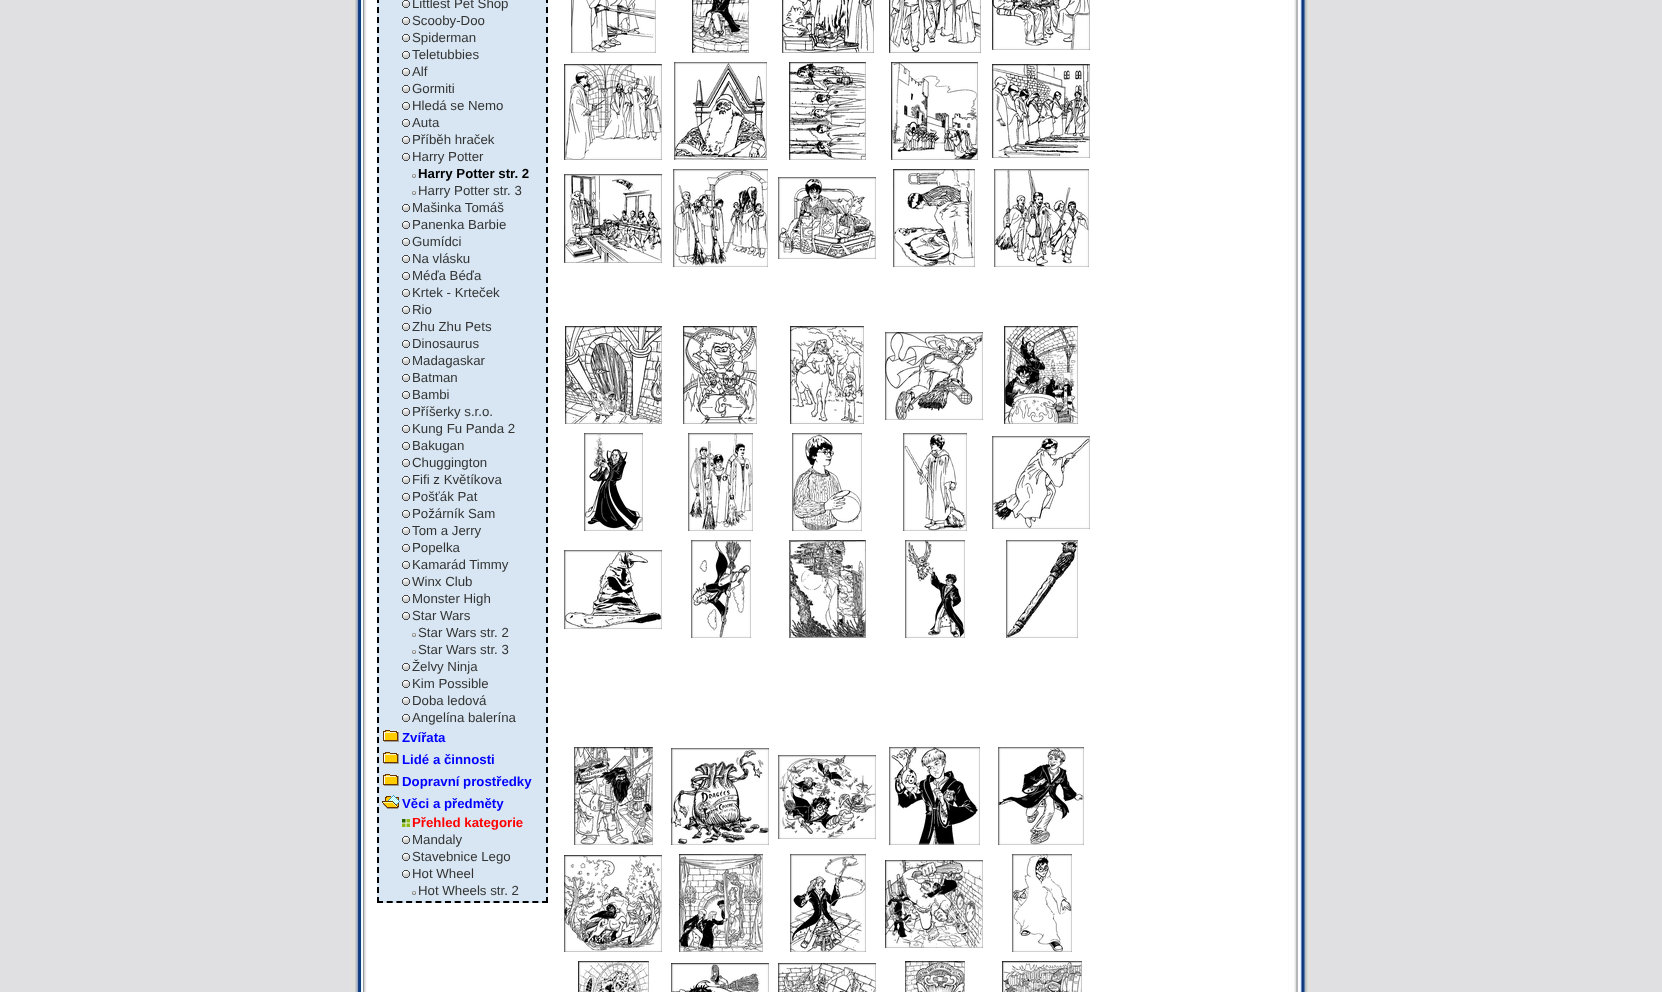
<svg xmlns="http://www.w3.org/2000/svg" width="1662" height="992">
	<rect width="100%" height="100%" fill="#E0E0E2" />
	<image x="351" y="0" width="960" height="992" href="assets/img1.png" />
	<rect x="377" y="0" width="171" height="903" fill="#D7E6F2" />
	<path d="M547-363V903" fill="none" stroke="#000000" stroke-width="2" stroke-dasharray="6 4" />
	<path d="M377 902H548" fill="none" stroke="#000000" stroke-width="2" stroke-dasharray="6 3.71" />
	<path d="M378-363V903" fill="none" stroke="#000000" stroke-width="2" stroke-dasharray="6 4" />
	<image x="402" y="0" width="8" height="8" href="assets/img2.png" />
	<text x="412" y="8" font-family="Liberation Sans" font-size="13.25" fill="#333333">Littlest Pet Shop</text>
	<image x="402" y="17" width="8" height="8" href="assets/img2.png" />
	<text x="412" y="25" font-family="Liberation Sans" font-size="13.25" fill="#333333">Scooby-Doo</text>
	<image x="402" y="34" width="8" height="8" href="assets/img2.png" />
	<text x="412" y="42" font-family="Liberation Sans" font-size="13.25" fill="#333333">Spiderman</text>
	<image x="402" y="51" width="8" height="8" href="assets/img2.png" />
	<text x="412" y="59" font-family="Liberation Sans" font-size="13.25" fill="#333333">Teletubbies</text>
	<image x="402" y="68" width="8" height="8" href="assets/img2.png" />
	<text x="412" y="76" font-family="Liberation Sans" font-size="13.25" fill="#333333">Alf</text>
	<image x="402" y="85" width="8" height="8" href="assets/img2.png" />
	<text x="412" y="93" font-family="Liberation Sans" font-size="13.25" fill="#333333">Gormiti</text>
	<image x="402" y="102" width="8" height="8" href="assets/img2.png" />
	<text x="412" y="110" font-family="Liberation Sans" font-size="13.25" fill="#333333">Hledá se Nemo</text>
	<image x="402" y="119" width="8" height="8" href="assets/img2.png" />
	<text x="412" y="127" font-family="Liberation Sans" font-size="13.25" fill="#333333">Auta</text>
	<image x="402" y="136" width="8" height="8" href="assets/img2.png" />
	<text x="412" y="144" font-family="Liberation Sans" font-size="13.25" fill="#333333">Příběh hraček</text>
	<image x="402" y="153" width="8" height="8" href="assets/img2.png" />
	<text x="412" y="161" font-family="Liberation Sans" font-size="13.25" fill="#333333">Harry Potter</text>
	<image x="412" y="174" width="4" height="4" href="assets/img3.png" />
	<text x="418" y="178" font-family="Liberation Sans" font-size="13.25" font-weight="700" fill="#000000">Harry Potter str. 2</text>
	<image x="412" y="191" width="4" height="4" href="assets/img3.png" />
	<text x="418" y="195" font-family="Liberation Sans" font-size="13.25" fill="#333333">Harry Potter str. 3</text>
	<image x="402" y="204" width="8" height="8" href="assets/img2.png" />
	<text x="412" y="212" font-family="Liberation Sans" font-size="13.25" fill="#333333">Mašinka Tomáš</text>
	<image x="402" y="221" width="8" height="8" href="assets/img2.png" />
	<text x="412" y="229" font-family="Liberation Sans" font-size="13.25" fill="#333333">Panenka Barbie</text>
	<image x="402" y="238" width="8" height="8" href="assets/img2.png" />
	<text x="412" y="246" font-family="Liberation Sans" font-size="13.25" fill="#333333">Gumídci</text>
	<image x="402" y="255" width="8" height="8" href="assets/img2.png" />
	<text x="412" y="263" font-family="Liberation Sans" font-size="13.25" fill="#333333">Na vlásku</text>
	<image x="402" y="272" width="8" height="8" href="assets/img2.png" />
	<text x="412" y="280" font-family="Liberation Sans" font-size="13.25" fill="#333333">Méďa Béďa</text>
	<image x="402" y="289" width="8" height="8" href="assets/img2.png" />
	<text x="412" y="297" font-family="Liberation Sans" font-size="13.25" fill="#333333">Krtek - Krteček</text>
	<image x="402" y="306" width="8" height="8" href="assets/img2.png" />
	<text x="412" y="314" font-family="Liberation Sans" font-size="13.25" fill="#333333">Rio</text>
	<image x="402" y="323" width="8" height="8" href="assets/img2.png" />
	<text x="412" y="331" font-family="Liberation Sans" font-size="13.25" fill="#333333">Zhu Zhu Pets</text>
	<image x="402" y="340" width="8" height="8" href="assets/img2.png" />
	<text x="412" y="348" font-family="Liberation Sans" font-size="13.25" fill="#333333">Dinosaurus</text>
	<image x="402" y="357" width="8" height="8" href="assets/img2.png" />
	<text x="412" y="365" font-family="Liberation Sans" font-size="13.25" fill="#333333">Madagaskar</text>
	<image x="402" y="374" width="8" height="8" href="assets/img2.png" />
	<text x="412" y="382" font-family="Liberation Sans" font-size="13.25" fill="#333333">Batman</text>
	<image x="402" y="391" width="8" height="8" href="assets/img2.png" />
	<text x="412" y="399" font-family="Liberation Sans" font-size="13.25" fill="#333333">Bambi</text>
	<image x="402" y="408" width="8" height="8" href="assets/img2.png" />
	<text x="412" y="416" font-family="Liberation Sans" font-size="13.25" fill="#333333">Příšerky s.r.o.</text>
	<image x="402" y="425" width="8" height="8" href="assets/img2.png" />
	<text x="412" y="433" font-family="Liberation Sans" font-size="13.25" fill="#333333">Kung Fu Panda 2</text>
	<image x="402" y="442" width="8" height="8" href="assets/img2.png" />
	<text x="412" y="450" font-family="Liberation Sans" font-size="13.25" fill="#333333">Bakugan</text>
	<image x="402" y="459" width="8" height="8" href="assets/img2.png" />
	<text x="412" y="467" font-family="Liberation Sans" font-size="13.25" fill="#333333">Chuggington</text>
	<image x="402" y="476" width="8" height="8" href="assets/img2.png" />
	<text x="412" y="484" font-family="Liberation Sans" font-size="13.25" fill="#333333">Fifi z Květíkova</text>
	<image x="402" y="493" width="8" height="8" href="assets/img2.png" />
	<text x="412" y="501" font-family="Liberation Sans" font-size="13.25" fill="#333333">Pošťák Pat</text>
	<image x="402" y="510" width="8" height="8" href="assets/img2.png" />
	<text x="412" y="518" font-family="Liberation Sans" font-size="13.25" fill="#333333">Požárník Sam</text>
	<image x="402" y="527" width="8" height="8" href="assets/img2.png" />
	<text x="412" y="535" font-family="Liberation Sans" font-size="13.25" fill="#333333">Tom a Jerry</text>
	<image x="402" y="544" width="8" height="8" href="assets/img2.png" />
	<text x="412" y="552" font-family="Liberation Sans" font-size="13.25" fill="#333333">Popelka</text>
	<image x="402" y="561" width="8" height="8" href="assets/img2.png" />
	<text x="412" y="569" font-family="Liberation Sans" font-size="13.25" fill="#333333">Kamarád Timmy</text>
	<image x="402" y="578" width="8" height="8" href="assets/img2.png" />
	<text x="412" y="586" font-family="Liberation Sans" font-size="13.25" fill="#333333">Winx Club</text>
	<image x="402" y="595" width="8" height="8" href="assets/img2.png" />
	<text x="412" y="603" font-family="Liberation Sans" font-size="13.25" fill="#333333">Monster High</text>
	<image x="402" y="612" width="8" height="8" href="assets/img2.png" />
	<text x="412" y="620" font-family="Liberation Sans" font-size="13.25" fill="#333333">Star Wars</text>
	<image x="412" y="633" width="4" height="4" href="assets/img3.png" />
	<text x="418" y="637" font-family="Liberation Sans" font-size="13.25" fill="#333333">Star Wars str. 2</text>
	<image x="412" y="650" width="4" height="4" href="assets/img3.png" />
	<text x="418" y="654" font-family="Liberation Sans" font-size="13.25" fill="#333333">Star Wars str. 3</text>
	<image x="402" y="663" width="8" height="8" href="assets/img2.png" />
	<text x="412" y="671" font-family="Liberation Sans" font-size="13.25" fill="#333333">Želvy Ninja</text>
	<image x="402" y="680" width="8" height="8" href="assets/img2.png" />
	<text x="412" y="688" font-family="Liberation Sans" font-size="13.25" fill="#333333">Kim Possible</text>
	<image x="402" y="697" width="8" height="8" href="assets/img2.png" />
	<text x="412" y="705" font-family="Liberation Sans" font-size="13.25" fill="#333333">Doba ledová</text>
	<image x="402" y="714" width="8" height="8" href="assets/img2.png" />
	<text x="412" y="722" font-family="Liberation Sans" font-size="13.25" fill="#333333">Angelína balerína</text>
	<image x="383" y="730" width="16" height="12" href="assets/img4.png" />
	<text x="402" y="742" font-family="Liberation Sans" font-size="13.25" font-weight="700" fill="#0000FF">Zvířata</text>
	<image x="383" y="752" width="16" height="12" href="assets/img4.png" />
	<text x="402" y="764" font-family="Liberation Sans" font-size="13.25" font-weight="700" fill="#0000FF">Lidé a činnosti</text>
	<image x="383" y="774" width="16" height="12" href="assets/img4.png" />
	<text x="402" y="786" font-family="Liberation Sans" font-size="13.25" font-weight="700" fill="#0000FF">Dopravní prostředky</text>
	<image x="382" y="795" width="18" height="14" href="assets/img5.png" />
	<text x="402" y="808" font-family="Liberation Sans" font-size="13.25" font-weight="700" fill="#0000FF">Věci a předměty</text>
	<image x="402" y="819" width="8" height="8" href="assets/img6.png" />
	<text x="412" y="827" font-family="Liberation Sans" font-size="13.25" font-weight="700" fill="#FF0000">Přehled kategorie</text>
	<image x="402" y="836" width="8" height="8" href="assets/img2.png" />
	<text x="412" y="844" font-family="Liberation Sans" font-size="13.25" fill="#333333">Mandaly</text>
	<image x="402" y="853" width="8" height="8" href="assets/img2.png" />
	<text x="412" y="861" font-family="Liberation Sans" font-size="13.25" fill="#333333">Stavebnice Lego</text>
	<image x="402" y="870" width="8" height="8" href="assets/img2.png" />
	<text x="412" y="878" font-family="Liberation Sans" font-size="13.25" fill="#333333">Hot Wheel</text>
	<image x="412" y="891" width="4" height="4" href="assets/img3.png" />
	<text x="418" y="895" font-family="Liberation Sans" font-size="13.25" fill="#333333">Hot Wheels str. 2</text>
	<image x="571" y="0" width="85" height="53" href="assets/img7.png" />
	<image x="692" y="0" width="57" height="53" href="assets/img8.png" />
	<image x="782" y="0" width="92" height="53" href="assets/img9.png" />
	<image x="889" y="0" width="92" height="53" href="assets/img10.png" />
	<image x="992" y="0" width="98" height="50" href="assets/img11.png" />
	<image x="564" y="64" width="98" height="96" href="assets/img12.png" />
	<image x="674" y="62" width="93" height="98" href="assets/img13.png" />
	<image x="789" y="62" width="77" height="98" href="assets/img14.png" />
	<image x="891" y="62" width="87" height="98" href="assets/img15.png" />
	<image x="992" y="64" width="98" height="94" href="assets/img16.png" />
	<image x="564" y="174" width="98" height="89" href="assets/img17.png" />
	<image x="673" y="169" width="95" height="98" href="assets/img18.png" />
	<image x="778" y="177" width="98" height="82" href="assets/img19.png" />
	<image x="893" y="169" width="82" height="98" href="assets/img20.png" />
	<image x="994" y="169" width="95" height="98" href="assets/img21.png" />
	<image x="565" y="326" width="97" height="98" href="assets/img22.png" />
	<image x="683" y="326" width="74" height="98" href="assets/img23.png" />
	<image x="790" y="326" width="74" height="98" href="assets/img24.png" />
	<image x="885" y="332" width="98" height="88" href="assets/img25.png" />
	<image x="1004" y="326" width="74" height="98" href="assets/img26.png" />
	<image x="584" y="433" width="59" height="98" href="assets/img27.png" />
	<image x="688" y="433" width="65" height="98" href="assets/img28.png" />
	<image x="792" y="433" width="70" height="98" href="assets/img29.png" />
	<image x="903" y="433" width="64" height="98" href="assets/img30.png" />
	<image x="992" y="436" width="98" height="93" href="assets/img31.png" />
	<image x="564" y="550" width="98" height="79" href="assets/img32.png" />
	<image x="691" y="540" width="60" height="98" href="assets/img33.png" />
	<image x="789" y="540" width="77" height="98" href="assets/img34.png" />
	<image x="905" y="540" width="60" height="98" href="assets/img35.png" />
	<image x="1006" y="540" width="72" height="98" href="assets/img36.png" />
	<image x="574" y="747" width="79" height="98" href="assets/img37.png" />
	<image x="671" y="748" width="98" height="97" href="assets/img38.png" />
	<image x="778" y="755" width="98" height="84" href="assets/img39.png" />
	<image x="889" y="747" width="91" height="98" href="assets/img40.png" />
	<image x="998" y="747" width="86" height="98" href="assets/img41.png" />
	<image x="564" y="855" width="98" height="97" href="assets/img42.png" />
	<image x="679" y="854" width="84" height="98" href="assets/img43.png" />
	<image x="790" y="854" width="76" height="98" href="assets/img44.png" />
	<image x="885" y="860" width="98" height="88" href="assets/img45.png" />
	<image x="1012" y="854" width="60" height="98" href="assets/img46.png" />
	<image x="578" y="961" width="71" height="31" href="assets/img47.png" />
	<image x="671" y="963" width="98" height="29" href="assets/img48.png" />
	<image x="778" y="963" width="98" height="29" href="assets/img49.png" />
	<image x="905" y="961" width="60" height="31" href="assets/img50.png" />
	<image x="1002" y="961" width="80" height="31" href="assets/img51.png" />
</svg>
